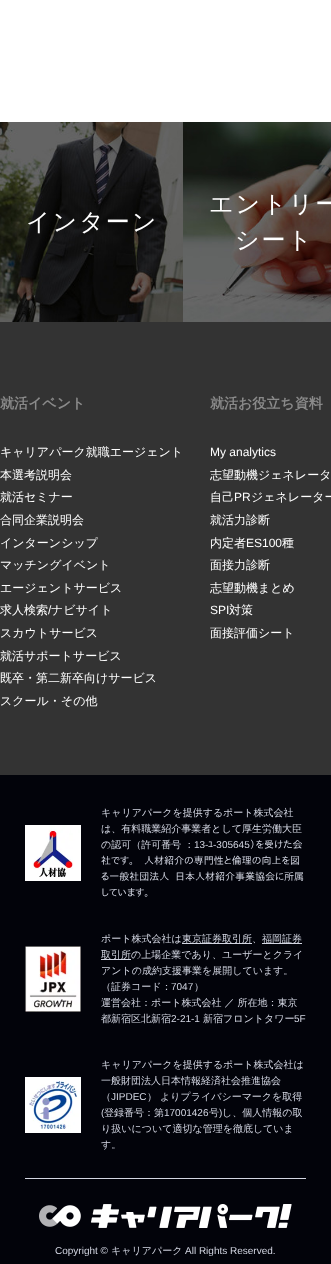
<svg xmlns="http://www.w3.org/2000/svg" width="331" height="1264">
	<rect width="100%" height="100%" fill="#FFFFFF" />
	<image x="0" y="122" width="183" height="200" href="assets/img1.png" />
	<text x="26" y="230" font-family="WenQuanYi Zen Hei" font-size="24" font-weight="500" letter-spacing="2" fill="#FFFFFF">インターン</text>
	<image x="183" y="122" width="148" height="200" href="assets/img2.png" />
	<g font-family="WenQuanYi Zen Hei" font-size="24" font-weight="500" letter-spacing="2" fill="#FFFFFF">
		<text x="209" y="212">エントリー</text>
		<text x="235" y="248">シート</text>
	</g>
	<rect x="0" y="322" width="331" height="453" fill="#333333" />
	<text x="0" y="408" font-family="WenQuanYi Zen Hei" font-size="14" font-weight="700" fill="#8A8A8A">就活イベント</text>
	<g font-family="WenQuanYi Zen Hei" font-size="12" font-weight="500" fill="#FFFFFF">
		<text x="0" y="456">キャリアパーク就職エージェント</text>
		<text x="0" y="479">本選考説明会</text>
		<text x="0" y="501">就活セミナー</text>
		<text x="0" y="524">合同企業説明会</text>
		<text x="0" y="547">インターンシップ</text>
		<text x="0" y="569">マッチングイベント</text>
		<text x="0" y="592">エージェントサービス</text>
		<text x="0" y="614">求人検索</text>
	</g>
	<text x="48" y="614" font-family="Liberation Sans" font-size="12" fill="#FFFFFF">/</text>
	<g font-family="WenQuanYi Zen Hei" font-size="12" font-weight="500" fill="#FFFFFF">
		<text x="51" y="614">ナビサイト</text>
		<text x="0" y="637">スカウトサービス</text>
		<text x="0" y="660">就活サポートサービス</text>
		<text x="0" y="682">既卒・第二新卒向けサービス</text>
		<text x="0" y="705">スクール・その他</text>
	</g>
	<text x="210" y="408" font-family="WenQuanYi Zen Hei" font-size="14" font-weight="700" fill="#8A8A8A">就活お役立ち資料</text>
	<text x="210" y="456" font-family="Liberation Sans" font-size="12" fill="#FFFFFF">My analytics</text>
	<g font-family="WenQuanYi Zen Hei" font-size="12" font-weight="500" fill="#FFFFFF">
		<text x="210" y="479">志望動機ジェネレータ</text>
		<text x="210" y="501">自己</text>
	</g>
	<text x="234" y="501" font-family="Liberation Sans" font-size="12" fill="#FFFFFF">PR</text>
	<g font-family="WenQuanYi Zen Hei" font-size="12" font-weight="500" fill="#FFFFFF">
		<text x="251" y="501">ジェネレーター</text>
		<text x="210" y="524">就活力診断</text>
		<text x="210" y="547">内定者</text>
	</g>
	<text x="246" y="547" font-family="Liberation Sans" font-size="12" fill="#FFFFFF">ES100</text>
	<g font-family="WenQuanYi Zen Hei" font-size="12" font-weight="500" fill="#FFFFFF">
		<text x="282" y="547">種</text>
		<text x="210" y="569">面接力診断</text>
		<text x="210" y="592">志望動機まとめ</text>
	</g>
	<text x="210" y="614" font-family="Liberation Sans" font-size="12" fill="#FFFFFF">SPI</text>
	<g font-family="WenQuanYi Zen Hei" font-size="12" font-weight="500" fill="#FFFFFF">
		<text x="229" y="614">対策</text>
		<text x="210" y="637">面接評価シート</text>
	</g>
	<rect x="0" y="775" width="331" height="489" fill="#02030A" />
	<image x="25" y="825" width="56" height="56" href="assets/img3.png" />
	<g font-family="WenQuanYi Zen Hei" font-size="10" font-weight="500" fill="#D3D6E2">
		<text x="101" y="816">キャリアパークを提供するポート株式会社</text>
		<text x="101" y="832">は、有料職業紹介事業者として厚生労働大臣</text>
		<text x="101" y="848">の認可（許可番号 ：</text>
	</g>
	<text x="194" y="848" font-family="Liberation Sans" font-size="10" fill="#D3D6E2">13-</text>
	<text x="208" y="848" font-family="IPAPGothic" font-size="10" fill="#D3D6E2">ﾕ</text>
	<text x="213" y="848" font-family="Liberation Sans" font-size="10" fill="#D3D6E2">-305645</text>
	<g font-family="IPAPGothic" font-size="10" fill="#D3D6E2">
		<text x="250" y="848">）を受けた会</text>
		<text x="101" y="864">社です。</text>
		<text x="144" y="864">人材紹介の専門性と倫理の向上を図</text>
		<text x="101" y="880" word-spacing="3">る一般社団法人 日本人材紹介事業協会に所属</text>
		<text x="101" y="896">しています。</text>
	</g>
	<image x="25" y="946" width="56" height="66" href="assets/img4.png" />
	<text x="101" y="942" font-family="WenQuanYi Zen Hei" font-size="10" font-weight="500" fill="#D3D6E2">ポート株式会社は</text>
	<rect x="182" y="943" width="70" height="1" fill="#D3D6E2" />
	<text x="182" y="942" font-family="WenQuanYi Zen Hei" font-size="10" font-weight="500" fill="#D3D6E2">東京証券取引所、</text>
	<rect x="262" y="943" width="40" height="1" fill="#D3D6E2" />
	<text x="262" y="942" font-family="WenQuanYi Zen Hei" font-size="10" font-weight="500" fill="#D3D6E2">福岡証券</text>
	<rect x="101" y="959" width="30" height="1" fill="#D3D6E2" />
	<g font-family="WenQuanYi Zen Hei" font-size="10" font-weight="500" fill="#D3D6E2">
		<text x="101" y="958">取引所の上場企業であり、ユーザーとクライ</text>
		<text x="101" y="974">アントの成約支援事業を展開しています。</text>
		<text x="101" y="990">（証券コード：</text>
	</g>
	<text x="171" y="990" font-family="Liberation Sans" font-size="10" fill="#D3D6E2">7047</text>
	<g font-family="WenQuanYi Zen Hei" font-size="10" font-weight="500" fill="#D3D6E2">
		<text x="194" y="990">）</text>
		<text x="101" y="1006">運営会社：ポート株式会社 ／ 所在地：東京</text>
		<text x="101" y="1022">都新宿区北新宿</text>
	</g>
	<text x="171" y="1022" font-family="Liberation Sans" font-size="10" fill="#D3D6E2">2-21-1</text>
	<text x="203" y="1022" font-family="WenQuanYi Zen Hei" font-size="10" font-weight="500" fill="#D3D6E2">新宿フロントタワー</text>
	<text x="294" y="1022" font-family="Liberation Sans" font-size="10" fill="#D3D6E2">5F</text>
	<image x="25" y="1077" width="56" height="56" href="assets/img5.png" />
	<g font-family="WenQuanYi Zen Hei" font-size="10" font-weight="500" fill="#D3D6E2">
		<text x="101" y="1068">キャリアパークを提供するポート株式会社は</text>
		<text x="101" y="1084">一般財団法人日本情報経済社会推進協会</text>
		<text x="101" y="1100">（</text>
	</g>
	<text x="111" y="1100" font-family="Liberation Sans" font-size="10" fill="#D3D6E2">JIPDEC</text>
	<text x="147" y="1100" font-family="WenQuanYi Zen Hei" font-size="10" font-weight="500" fill="#D3D6E2">） よりプライバシーマークを取得</text>
	<text x="101" y="1116" font-family="Liberation Sans" font-size="10" fill="#D3D6E2">(</text>
	<text x="104" y="1116" font-family="WenQuanYi Zen Hei" font-size="10" font-weight="500" fill="#D3D6E2">登録番号：第</text>
	<text x="164" y="1116" font-family="Liberation Sans" font-size="10" fill="#D3D6E2">17001426</text>
	<text x="209" y="1116" font-family="WenQuanYi Zen Hei" font-size="10" font-weight="500" fill="#D3D6E2">号</text>
	<text x="219" y="1116" font-family="Liberation Sans" font-size="10" fill="#D3D6E2">)</text>
	<g font-family="WenQuanYi Zen Hei" font-size="10" font-weight="500" fill="#D3D6E2">
		<text x="222" y="1116">し、個人情報の取</text>
		<text x="101" y="1132">り扱いについて適切な管理を徹底していま</text>
		<text x="101" y="1148">す。</text>
	</g>
	<rect x="25" y="1178" width="281" height="1" fill="#D3D6E2" />
	<image x="39" y="1204" width="253" height="24" href="assets/img6.png" />
	<text x="55" y="1254" font-family="Liberation Sans" font-size="10" fill="#D3D6E2">Copyright ©</text>
	<text x="111" y="1254" font-family="WenQuanYi Zen Hei" font-size="10" font-weight="500" fill="#D3D6E2">キャリアパーク</text>
	<text x="185" y="1254" font-family="Liberation Sans" font-size="10" fill="#D3D6E2">All Rights Reserved.</text>
</svg>
